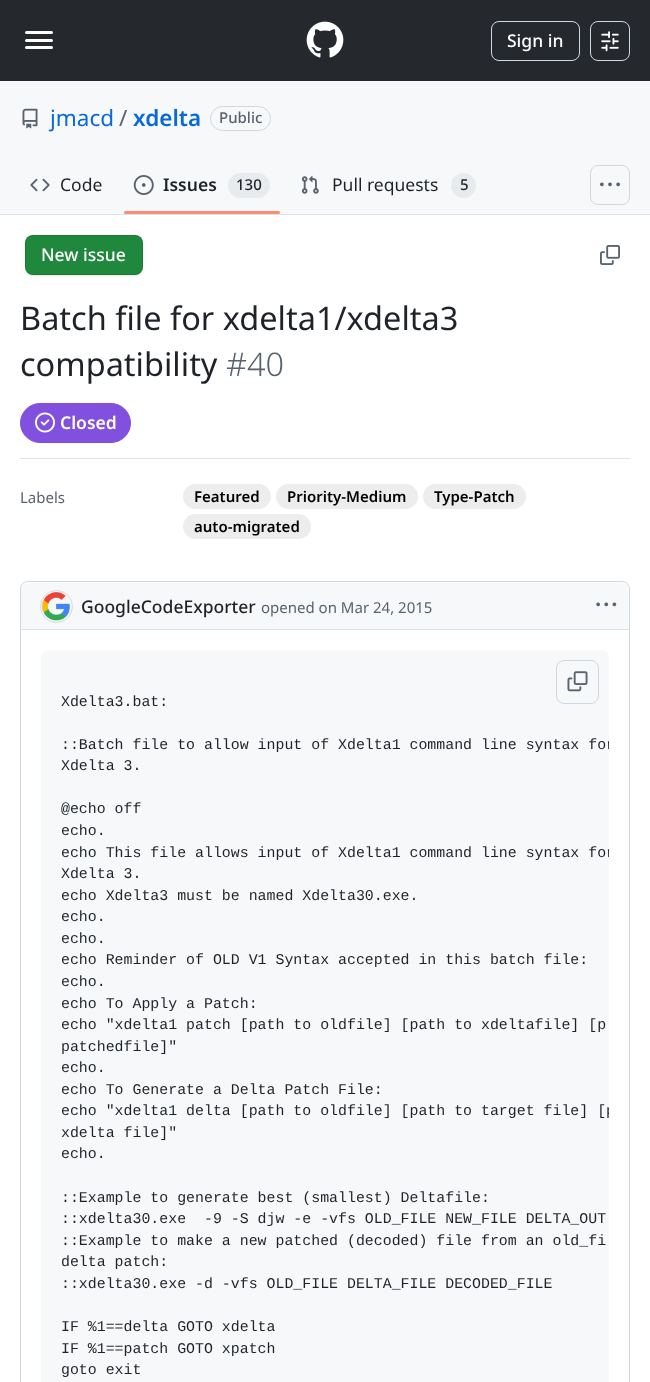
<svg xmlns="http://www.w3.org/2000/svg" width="650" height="1382">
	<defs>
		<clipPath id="clip1"><rect x="41" y="650" width="568" height="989" rx="8" /></clipPath>
	</defs>
	<rect width="100%" height="100%" fill="#FFFFFF" />
	<rect x="0" y="0" width="650" height="81" fill="#25292E" />
	<rect x="25" y="31" width="28" height="3" rx="1.5" fill="#FFFFFF" />
	<rect x="25" y="39" width="28" height="3" rx="1.5" fill="#FFFFFF" />
	<rect x="25" y="46" width="28" height="3" rx="1.5" fill="#FFFFFF" />
	<image x="306" y="21" width="38" height="37" href="assets/img1.png" />
	<rect x="491.5" y="21.5" width="88" height="39" rx="7.5" fill="none" stroke="#D1D9E0" />
	<text x="507" y="47" font-family="Noto Sans" font-size="17.5" font-weight="500" fill="#FFFFFF">Sign in</text>
	<rect x="590.5" y="21.5" width="39" height="39" rx="7.5" fill="none" stroke="#D1D9E0" />
	<image x="601" y="31" width="18" height="21" href="assets/img2.png" />
	<rect x="0" y="81" width="650" height="133" fill="#F6F8FA" />
	<image x="22" y="108" width="16" height="21" href="assets/img3.png" />
	<text x="50" y="126" font-family="Noto Sans" font-size="22.5" fill="#0969DA">jmacd</text>
	<text x="119" y="126" font-family="Noto Sans" font-size="22.5" fill="#59636E">/</text>
	<text x="133" y="126" font-family="Noto Sans" font-size="22.5" font-weight="600" fill="#0969DA">xdelta</text>
	<rect x="210.5" y="106.5" width="60" height="24" rx="12" fill="none" stroke="#D1D9E0" />
	<text x="219" y="123" font-family="Noto Sans" font-size="15" font-weight="500" fill="#59636E">Public</text>
	<rect x="0" y="214" width="650" height="1" fill="#DCE2E8" />
	<image x="30" y="178" width="20" height="14" href="assets/img4.png" />
	<text x="60" y="191" font-family="Noto Sans" font-size="17.5" fill="#1F2328">Code</text>
	<image x="133" y="175" width="21" height="20" href="assets/img5.png" />
	<text x="163" y="191" font-family="Noto Sans" font-size="17.5" font-weight="600" fill="#1F2328">Issues</text>
	<rect x="228" y="173" width="42" height="25" rx="12.5" fill="#E8EBEE" />
	<text x="236" y="190" font-family="Noto Sans" font-size="15" font-weight="500" fill="#1F2328">130</text>
	<rect x="124" y="211" width="156" height="3" rx="1.5" fill="#FD8C73" />
	<image x="301" y="175" width="18" height="19" href="assets/img6.png" />
	<text x="332" y="191" font-family="Noto Sans" font-size="17.5" fill="#1F2328">Pull requests</text>
	<circle cx="463.5" cy="185.5" r="12.5" fill="#E8EBEE" />
	<text x="460" y="190" font-family="Noto Sans" font-size="15" font-weight="500" fill="#1F2328">5</text>
	<rect x="590.5" y="165.5" width="39" height="39" rx="7.5" fill="none" stroke="#D1D9E0" />
	<image x="600" y="182" width="20" height="5" href="assets/img7.png" />
	<rect x="25" y="236" width="118" height="40" rx="8" fill="#1F2328" fill-opacity="0.06" filter="blur(2px)" />
	<rect x="25" y="236" width="118" height="40" rx="8" fill="#1F2328" fill-opacity="0.06" filter="blur(0.5px)" />
	<rect x="25" y="235" width="118" height="40" rx="8" fill="#1F883D" />
	<rect x="25.5" y="235.5" width="117" height="39" rx="7.5" fill="none" stroke="#1F2328" stroke-opacity="0.15" />
	<text x="41" y="261" font-family="Noto Sans" font-size="17.5" font-weight="500" fill="#FFFFFF">New issue</text>
	<image x="600" y="245" width="20" height="20" href="assets/img8.png" />
	<g font-family="Noto Sans" font-size="32.5" fill="#1F2328">
		<text x="20" y="330">Batch file for xdelta1/xdelta3</text>
		<text x="20" y="376">compatibility</text>
	</g>
	<text x="226" y="376" font-family="Noto Sans" font-size="32.5" font-weight="300" fill="#59636E">#40</text>
	<rect x="20" y="458" width="610" height="1" fill="#DFE4E9" />
	<rect x="20.5" y="403.5" width="110" height="39" rx="19.5" fill="#8250DF" stroke="#8250DF" />
	<image x="35" y="412" width="20" height="21" href="assets/img9.png" />
	<text x="60" y="429" font-family="Noto Sans" font-size="17.5" font-weight="600" fill="#FFFFFF">Closed</text>
	<text x="20" y="503" font-family="Noto Sans" font-size="15" fill="#59636E">Labels</text>
	<rect x="183" y="484" width="88" height="25" rx="12.5" fill="#EDEDED" />
	<text x="194" y="502" font-family="Noto Sans" font-size="15" font-weight="600" fill="#000000">Featured</text>
	<rect x="276" y="484" width="142" height="25" rx="12.5" fill="#EDEDED" />
	<text x="287" y="502" font-family="Noto Sans" font-size="15" font-weight="600" fill="#000000">Priority-Medium</text>
	<rect x="423" y="484" width="103" height="25" rx="12.5" fill="#EDEDED" />
	<text x="434" y="502" font-family="Noto Sans" font-size="15" font-weight="600" fill="#000000">Type-Patch</text>
	<rect x="183" y="514" width="128" height="25" rx="12.5" fill="#EDEDED" />
	<text x="194" y="532" font-family="Noto Sans" font-size="15" font-weight="600" fill="#000000">auto-migrated</text>
	<rect x="20.5" y="581.5" width="609" height="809" rx="7.5" fill="none" stroke="#D1D9E0" />
	<path d="M29 583H621C625.5 583 629 586.5 629 591V630H21V591C21 586.5 24.5 583 29 583Z" fill="#F6F8FA" />
	<rect x="21" y="629" width="608" height="1" fill="#DCE2E8" />
	<circle cx="56.5" cy="606.5" r="16" fill="none" stroke="#D6D8DB" />
	<image x="42" y="592" width="28" height="29" href="assets/img10.png" />
	<text x="81" y="613" font-family="Noto Sans" font-size="17.5" font-weight="500" fill="#1F2328">GoogleCodeExporter</text>
	<text x="261" y="613" font-family="Noto Sans" font-size="15" fill="#59636E">opened on Mar 24, 2015</text>
	<image x="596" y="602" width="21" height="5" href="assets/img11.png" />
	<rect x="41" y="650" width="568" height="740" rx="8" fill="#F6F8FA" />
	<rect x="556.5" y="660.5" width="42" height="43" rx="7.5" fill="none" stroke="#D1D9E0" />
	<image x="567" y="671" width="21" height="21" href="assets/img12.png" />
	<text x="61" y="706" font-family="Liberation Mono" font-size="14.9" fill="#1F2328">Xdelta3.bat:</text>
	<g clip-path="url(#clip1)">
		<text x="61" y="749" font-family="Liberation Mono" font-size="14.9" fill="#1F2328">::Batch file to allow input of Xdelta1 command line syntax for</text>
	</g>
	<g font-family="Liberation Mono" font-size="14.9" fill="#1F2328">
		<text x="61" y="770">Xdelta 3.</text>
		<text x="61" y="813">@echo off</text>
		<text x="61" y="835">echo.</text>
	</g>
	<g clip-path="url(#clip1)">
		<text x="61" y="857" font-family="Liberation Mono" font-size="14.9" fill="#1F2328">echo This file allows input of Xdelta1 command line syntax for</text>
	</g>
	<g font-family="Liberation Mono" font-size="14.9" fill="#1F2328">
		<text x="61" y="878">Xdelta 3.</text>
		<text x="61" y="900">echo Xdelta3 must be named Xdelta30.exe.</text>
		<text x="61" y="921">echo.</text>
		<text x="61" y="943">echo.</text>
		<text x="61" y="964">echo Reminder of OLD V1 Syntax accepted in this batch file:</text>
		<text x="61" y="986">echo.</text>
		<text x="61" y="1008">echo To Apply a Patch:</text>
		<text x="61" y="1029">echo "xdelta1 patch [path to oldfile] [path to xdeltafile] [p</text>
		<text x="61" y="1051">patchedfile]"</text>
		<text x="61" y="1072">echo.</text>
		<text x="61" y="1094">echo To Generate a Delta Patch File:</text>
	</g>
	<g clip-path="url(#clip1)">
		<text x="61" y="1115" font-family="Liberation Mono" font-size="14.9" fill="#1F2328">echo "xdelta1 delta [path to oldfile] [path to target file] [p</text>
	</g>
	<g font-family="Liberation Mono" font-size="14.9" fill="#1F2328">
		<text x="61" y="1137">xdelta file]"</text>
		<text x="61" y="1158">echo.</text>
		<text x="61" y="1202">::Example to generate best (smallest) Deltafile:</text>
		<text x="61" y="1223" xml:space="preserve">::xdelta30.exe  -9 -S djw -e -vfs OLD_FILE NEW_FILE DELTA_OUT</text>
		<text x="61" y="1245">::Example to make a new patched (decoded) file from an old_fi</text>
		<text x="61" y="1266">delta patch:</text>
		<text x="61" y="1288">::xdelta30.exe -d -vfs OLD_FILE DELTA_FILE DECODED_FILE</text>
		<text x="61" y="1331">IF %1==delta GOTO xdelta</text>
		<text x="61" y="1353">IF %1==patch GOTO xpatch</text>
		<text x="61" y="1374">goto exit</text>
	</g>
</svg>
